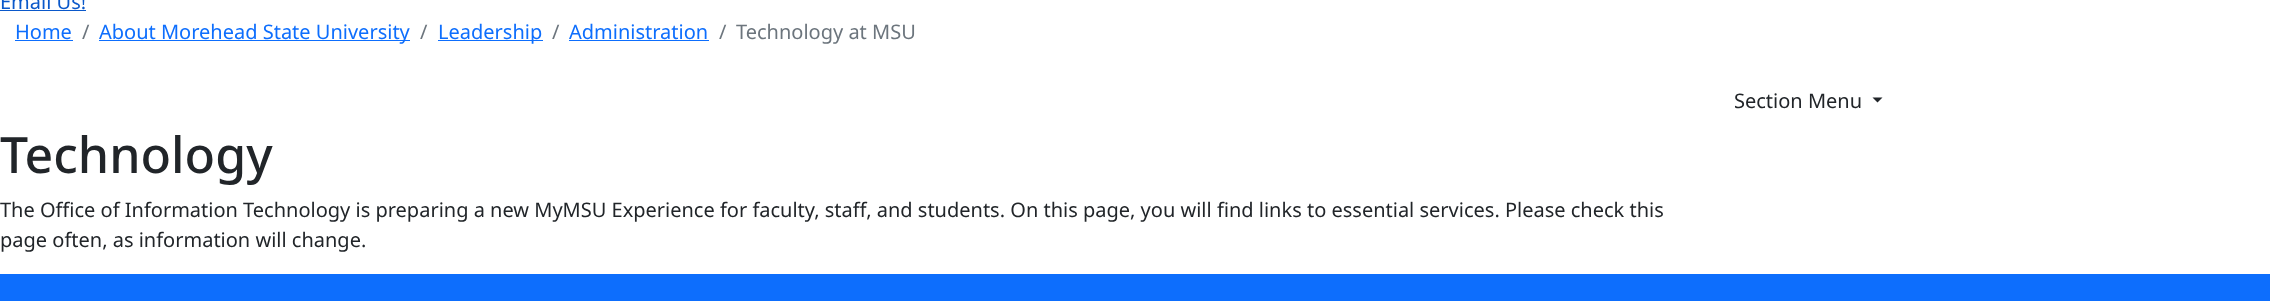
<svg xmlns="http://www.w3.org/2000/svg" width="2270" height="301">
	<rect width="100%" height="100%" fill="#FFFFFF" />
	<text x="0" y="9" font-family="Noto Sans" font-size="20" fill="#0A58CA">Email Us!</text>
	<rect x="0" y="10" width="86" height="1" fill="#0A58CA" />
	<text x="15" y="39" font-family="Noto Sans" font-size="20" fill="#0D6EFD">Home</text>
	<rect x="15" y="40" width="58" height="1" fill="#0D6EFD" />
	<text x="82" y="39" font-family="Noto Sans" font-size="20" fill="#6C757D">/</text>
	<rect x="99" y="40" width="311" height="1" fill="#0D6EFD" />
	<text x="99" y="39" font-family="Noto Sans" font-size="20" fill="#0D6EFD">About Morehead State University</text>
	<text x="420" y="39" font-family="Noto Sans" font-size="20" fill="#6C757D">/</text>
	<rect x="438" y="40" width="105" height="1" fill="#0D6EFD" />
	<text x="438" y="39" font-family="Noto Sans" font-size="20" fill="#0D6EFD">Leadership</text>
	<text x="552" y="39" font-family="Noto Sans" font-size="20" fill="#6C757D">/</text>
	<text x="569" y="39" font-family="Noto Sans" font-size="20" fill="#0D6EFD">Administration</text>
	<rect x="569" y="40" width="140" height="1" fill="#0D6EFD" />
	<g font-family="Noto Sans" font-size="20" fill="#6C757D">
		<text x="719" y="39">/</text>
		<text x="736" y="39">Technology at MSU</text>
	</g>
	<text x="1734" y="108" font-family="Noto Sans" font-size="20" fill="#212529">Section Menu</text>
	<path d="M1872.5 97.5H1882.5L1877.5 102.5Z" fill="#212529" />
	<text x="0" y="173" font-family="Noto Sans" font-size="50" font-weight="500" fill="#212529">Technology</text>
	<g font-family="Noto Sans" font-size="20" fill="#212529">
		<text x="0" y="217">The Office of Information Technology is preparing a new MyMSU Experience for faculty, staff, and students. On this page, you will find links to essential services. Please check this</text>
		<text x="0" y="247">page often, as information will change.</text>
	</g>
	<rect x="0" y="274" width="2270" height="27" fill="#0D6EFD" />
</svg>
